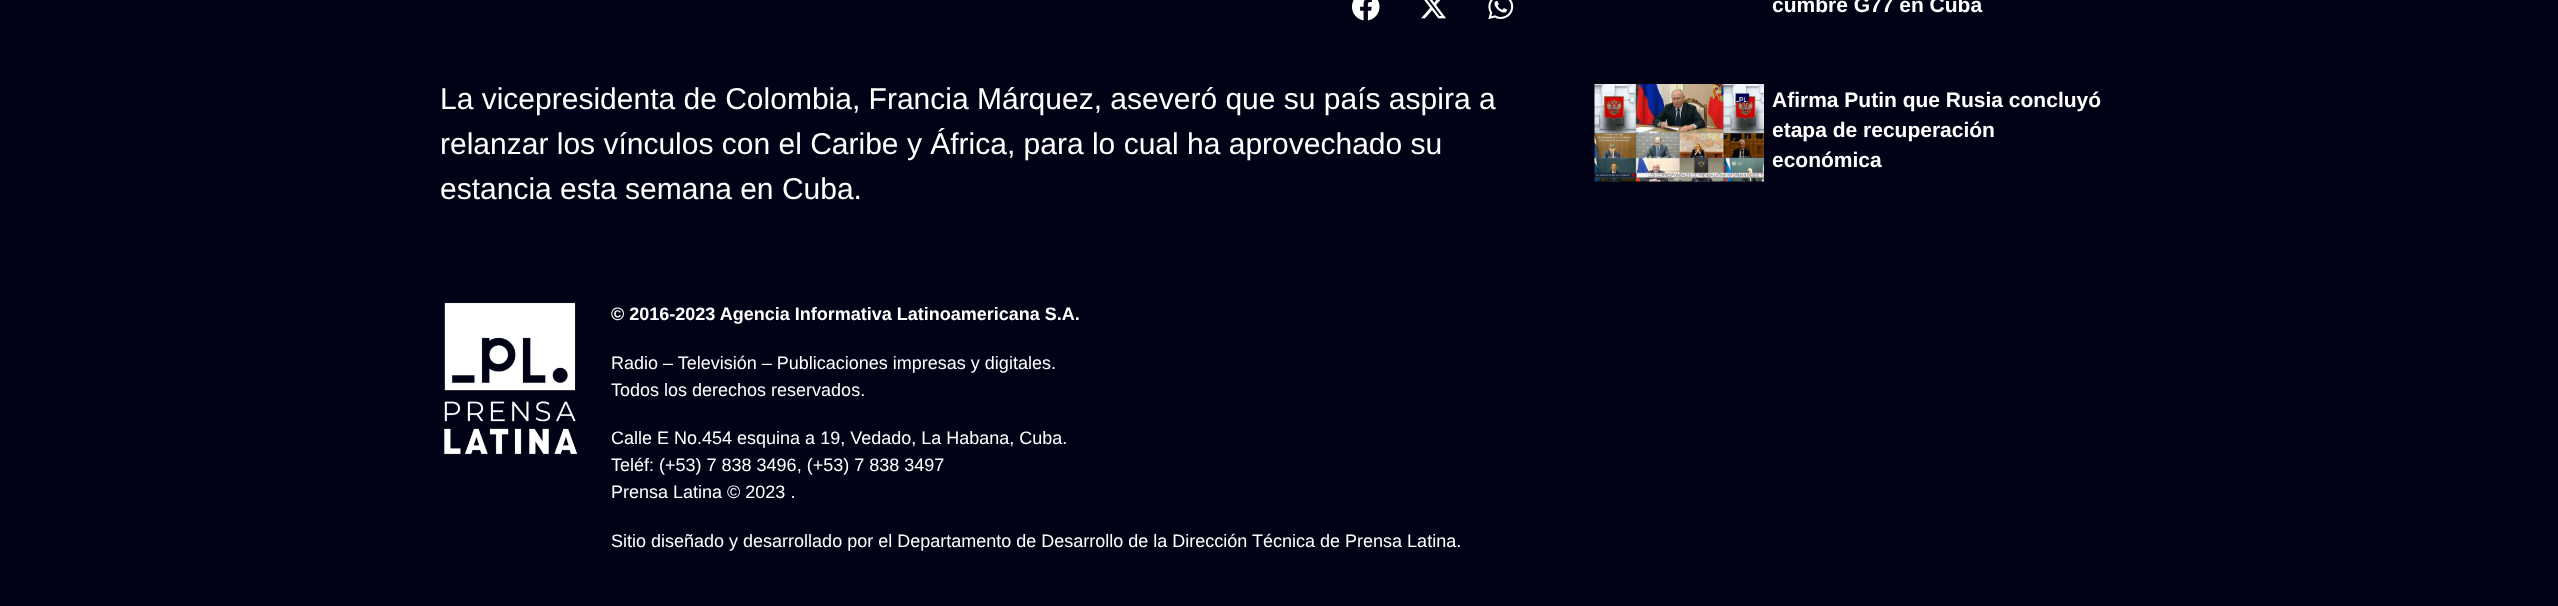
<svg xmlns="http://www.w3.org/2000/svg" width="2558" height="606">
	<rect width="100%" height="100%" fill="#010216" />
	<image x="1352" y="0" width="28" height="21" href="assets/img1.png" />
	<image x="1421" y="0" width="25" height="19" href="assets/img2.png" />
	<image x="1488" y="0" width="26" height="20" href="assets/img3.png" />
	<g font-family="Liberation Sans" font-size="30" fill="#FFFFFF">
		<text x="440" y="109">La vicepresidenta de Colombia, Francia Márquez, aseveró que su país aspira a</text>
		<text x="440" y="154">relanzar los vínculos con el Caribe y África, para lo cual ha aprovechado su</text>
		<text x="440" y="199">estancia esta semana en Cuba.</text>
	</g>
	<text x="1772" y="12" font-family="Liberation Sans" font-size="21" font-weight="700" fill="#FFFFFF">cumbre G77 en Cuba</text>
	<image x="1594" y="84" width="170" height="98" href="assets/img4.png" />
	<g font-family="Liberation Sans" font-size="21" font-weight="700" fill="#FFFFFF">
		<text x="1772" y="107">Afirma Putin que Rusia concluyó</text>
		<text x="1772" y="137">etapa de recuperación</text>
		<text x="1772" y="167">económica</text>
	</g>
	<image x="444" y="302" width="134" height="153" href="assets/img5.png" />
	<text x="611" y="320" font-family="Liberation Sans" font-size="18" font-weight="700" fill="#FFFFFF">© 2016-2023 Agencia Informativa Latinoamericana S.A.</text>
	<g font-family="Liberation Sans" font-size="18" fill="#FFFFFF">
		<text x="611" y="369">Radio – Televisión – Publicaciones impresas y digitales.</text>
		<text x="611" y="396">Todos los derechos reservados.</text>
		<text x="611" y="444">Calle E No.454 esquina a 19, Vedado, La Habana, Cuba.</text>
		<text x="611" y="471">Teléf: (+53) 7 838 3496, (+53) 7 838 3497</text>
		<text x="611" y="498">Prensa Latina © 2023 .</text>
		<text x="611" y="547">Sitio diseñado y desarrollado por el Departamento de Desarrollo de la Dirección Técnica de Prensa Latina.</text>
	</g>
</svg>
